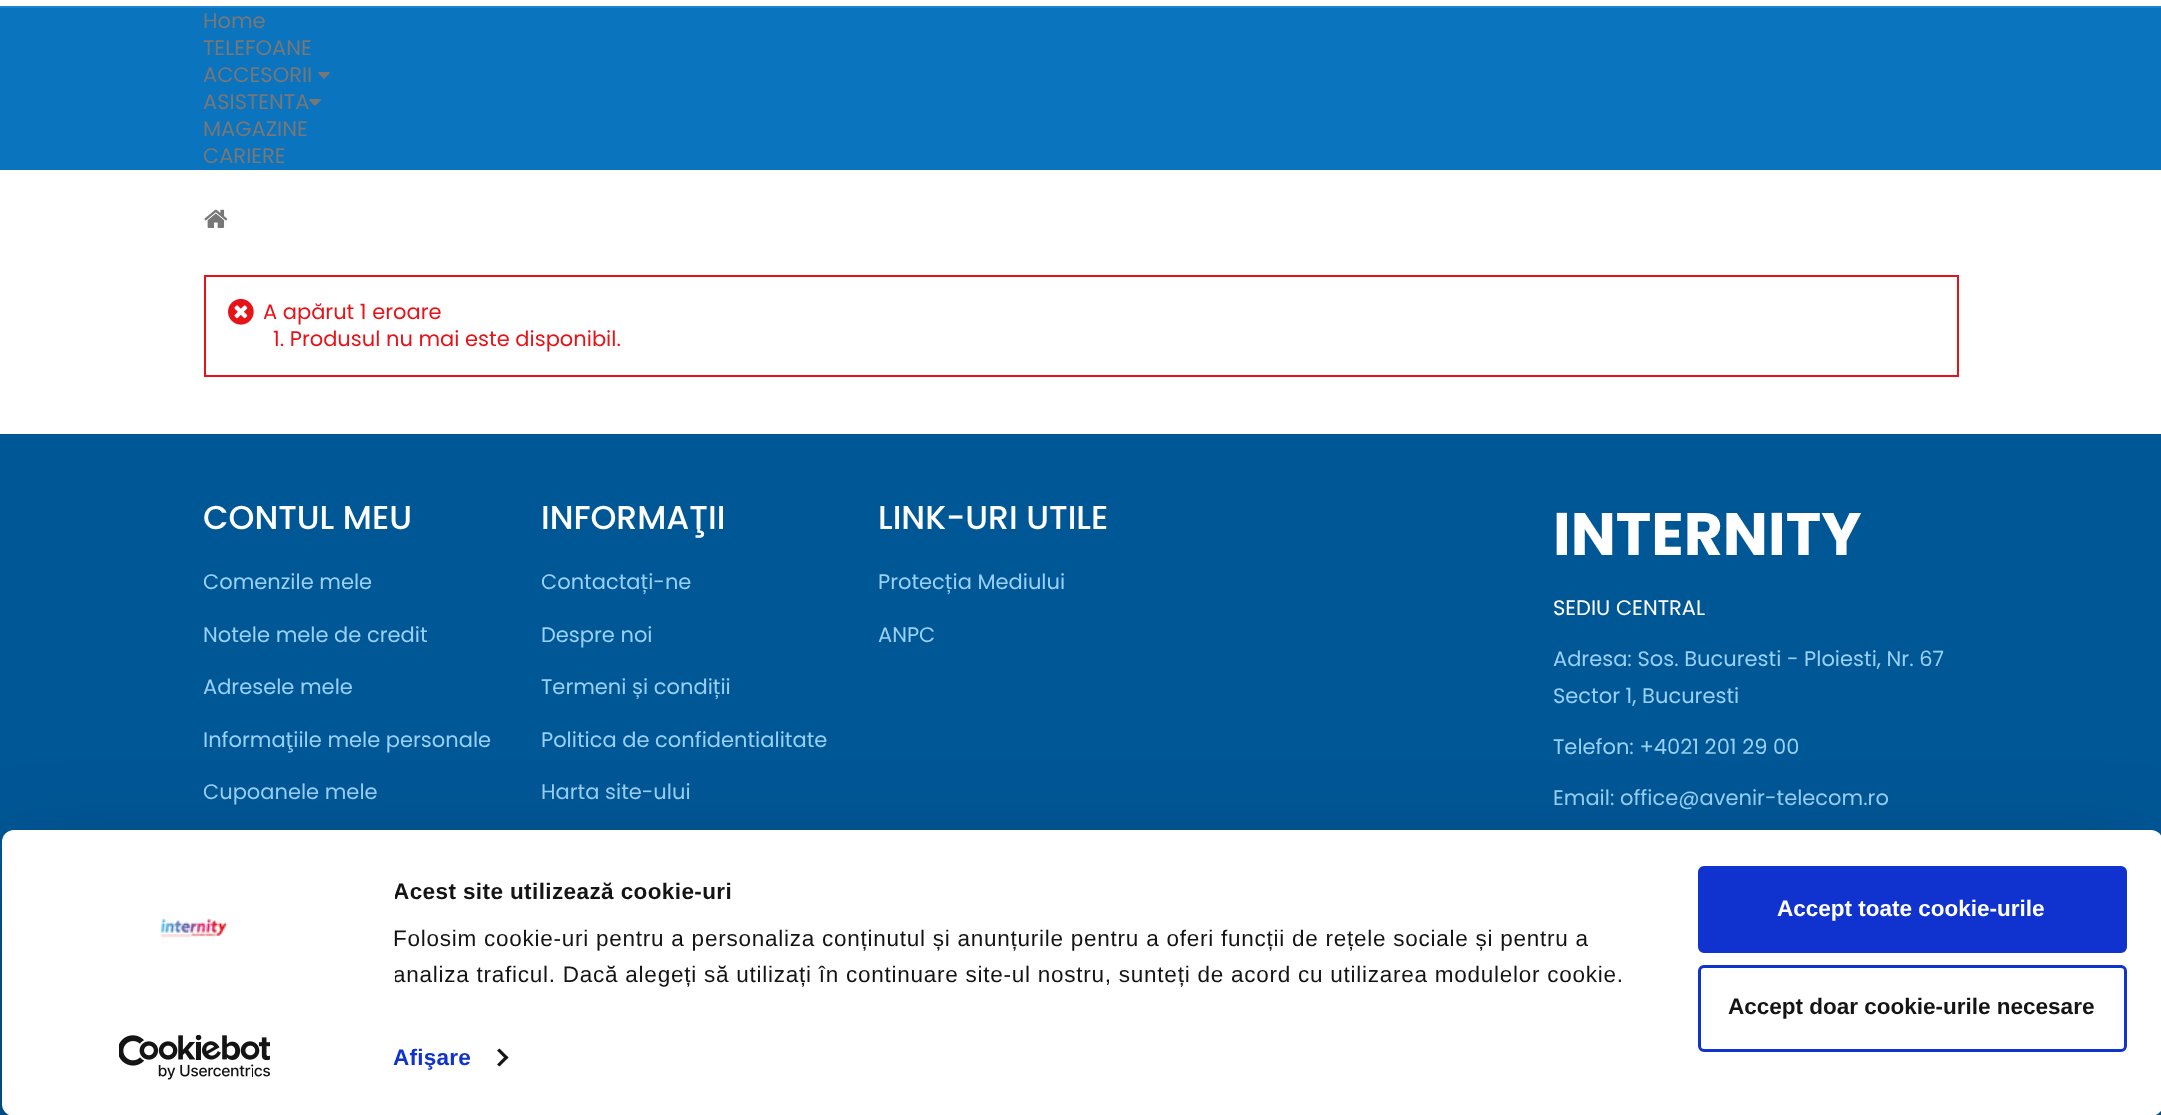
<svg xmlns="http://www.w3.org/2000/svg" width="2161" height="1115">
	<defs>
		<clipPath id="clip1"><path d="M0 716H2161V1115H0ZM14 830H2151C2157.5 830 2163 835.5 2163 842V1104C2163 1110.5 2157.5 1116 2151 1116H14C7.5 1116 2 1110.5 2 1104V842C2 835.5 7.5 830 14 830Z" clip-rule="evenodd" /></clipPath>
		<clipPath id="clip2"><rect x="395" y="875" width="1294" height="118" /></clipPath>
	</defs>
	<rect width="100%" height="100%" fill="#FFFFFF" />
	<rect x="0" y="6" width="2161" height="2" fill="#1D84CE" />
	<rect x="0" y="8" width="2161" height="162" fill="#0B74BF" />
	<g font-family="Poppins" font-size="21" fill="#777777">
		<text x="203" y="28">Home</text>
		<text x="203" y="55">TELEFOANE</text>
		<text x="203" y="82">ACCESORII</text>
	</g>
	<image x="318" y="72" width="12" height="7" href="assets/img1.png" />
	<text x="203" y="109" font-family="Poppins" font-size="21" fill="#777777">ASISTENTA</text>
	<image x="309" y="99" width="12" height="7" href="assets/img1.png" />
	<g font-family="Poppins" font-size="21" fill="#777777">
		<text x="203" y="136">MAGAZINE</text>
		<text x="203" y="163">CARIERE</text>
	</g>
	<image x="204" y="209" width="24" height="19" href="assets/img2.png" />
	<rect x="205" y="276" width="1753" height="100" fill="none" stroke="#E61319" stroke-width="2" />
	<image x="228" y="298" width="26" height="27" href="assets/img3.png" />
	<g font-family="Poppins" font-size="21" fill="#E61319">
		<text x="263" y="319">A apărut 1 eroare</text>
		<text x="273" y="346">1. Produsul nu mai este disponibil.</text>
	</g>
	<rect x="0" y="434" width="2161" height="681" fill="#005796" />
	<text x="203" y="529" font-family="Poppins" font-size="33" font-weight="500" fill="#FFFFFF">CONTUL MEU</text>
	<g font-family="Poppins" font-size="21" fill="#99D0F7">
		<text x="203" y="589">Comenzile mele</text>
		<text x="203" y="642">Notele mele de credit</text>
		<text x="203" y="694">Adresele mele</text>
		<text x="203" y="747">Informaţiile mele personale</text>
		<text x="203" y="799">Cupoanele mele</text>
	</g>
	<text x="541" y="529" font-family="Poppins" font-size="33" font-weight="500" fill="#FFFFFF">INFORMAŢII</text>
	<g font-family="Poppins" font-size="21" fill="#99D0F7">
		<text x="541" y="589">Contactați-ne</text>
		<text x="541" y="642">Despre noi</text>
		<text x="541" y="694">Termeni și condiții</text>
		<text x="541" y="747">Politica de confidentialitate</text>
		<text x="541" y="799">Harta site-ului</text>
	</g>
	<text x="878" y="529" font-family="Poppins" font-size="33" font-weight="500" fill="#FFFFFF">LINK-URI UTILE</text>
	<g font-family="Poppins" font-size="21" fill="#99D0F7">
		<text x="878" y="589">Protecția Mediului</text>
		<text x="878" y="642">ANPC</text>
	</g>
	<text x="1553" y="555" font-family="Poppins" font-size="60" font-weight="700" fill="#FFFFFF">INTERNITY</text>
	<text x="1553" y="615" font-family="Poppins" font-size="21" fill="#FFFFFF">SEDIU CENTRAL</text>
	<g font-family="Poppins" font-size="21" fill="#99D0F7">
		<text x="1553" y="666">Adresa: Sos. Bucuresti - Ploiesti, Nr. 67</text>
		<text x="1553" y="703">Sector 1, Bucuresti</text>
		<text x="1553" y="754">Telefon: +4021 201 29 00</text>
		<text x="1553" y="805">Email: office@avenir-telecom.ro</text>
	</g>
	<g clip-path="url(#clip1)">
		<rect x="2" y="875" width="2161" height="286" rx="12" fill="#000000" fill-opacity="0.3" filter="blur(52.5px)" />
	</g>
	<rect x="2" y="830" width="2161" height="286" rx="12" fill="#FFFFFF" />
	<image x="160" y="918" width="68" height="20" href="assets/img4.png" />
	<image x="119" y="1035" width="151" height="45" href="assets/img5.png" />
	<g clip-path="url(#clip2)">
		<text x="393" y="899" font-family="Liberation Sans" font-size="22.5" font-weight="700" letter-spacing="0.4" fill="#141414">Acest site utilizează cookie-uri</text>
	</g>
	<text x="393" y="946" font-family="Liberation Sans" font-size="22.5" letter-spacing="0.75" fill="#141414">Folosim cookie-uri pentru a personaliza conținutul și anunțurile pentru a oferi funcții de rețele sociale și pentru a</text>
	<g clip-path="url(#clip2)">
		<text x="393" y="982" font-family="Liberation Sans" font-size="22.5" letter-spacing="0.75" fill="#141414">analiza traficul. Dacă alegeți să utilizați în continuare site-ul nostru, sunteți de acord cu utilizarea modulelor cookie.</text>
	</g>
	<text x="393" y="1065" font-family="Liberation Sans" font-size="22.5" font-weight="700" letter-spacing="0.25" fill="#1032CF">Afişare</text>
	<path d="M499.5 1048.5L508.5 1057.5L506 1059.5L497 1050.5Z" fill="#141414" />
	<path d="M506 1055.5L508.5 1057.5L499.5 1066.5L497 1064.5Z" fill="#141414" />
	<rect x="1699.5" y="867.5" width="426" height="84" rx="4.5" fill="#1032CF" stroke="#1032CF" stroke-width="3" />
	<text x="1777" y="916" font-family="Liberation Sans" font-size="22.5" font-weight="700" fill="#FFFFFF">Accept toate cookie-urile</text>
	<rect x="1699.5" y="966.5" width="426" height="84" rx="4.5" fill="none" stroke="#1032CF" stroke-width="3" />
	<text x="1728" y="1014" font-family="Liberation Sans" font-size="22.5" font-weight="700" fill="#141414">Accept doar cookie-urile necesare</text>
</svg>
